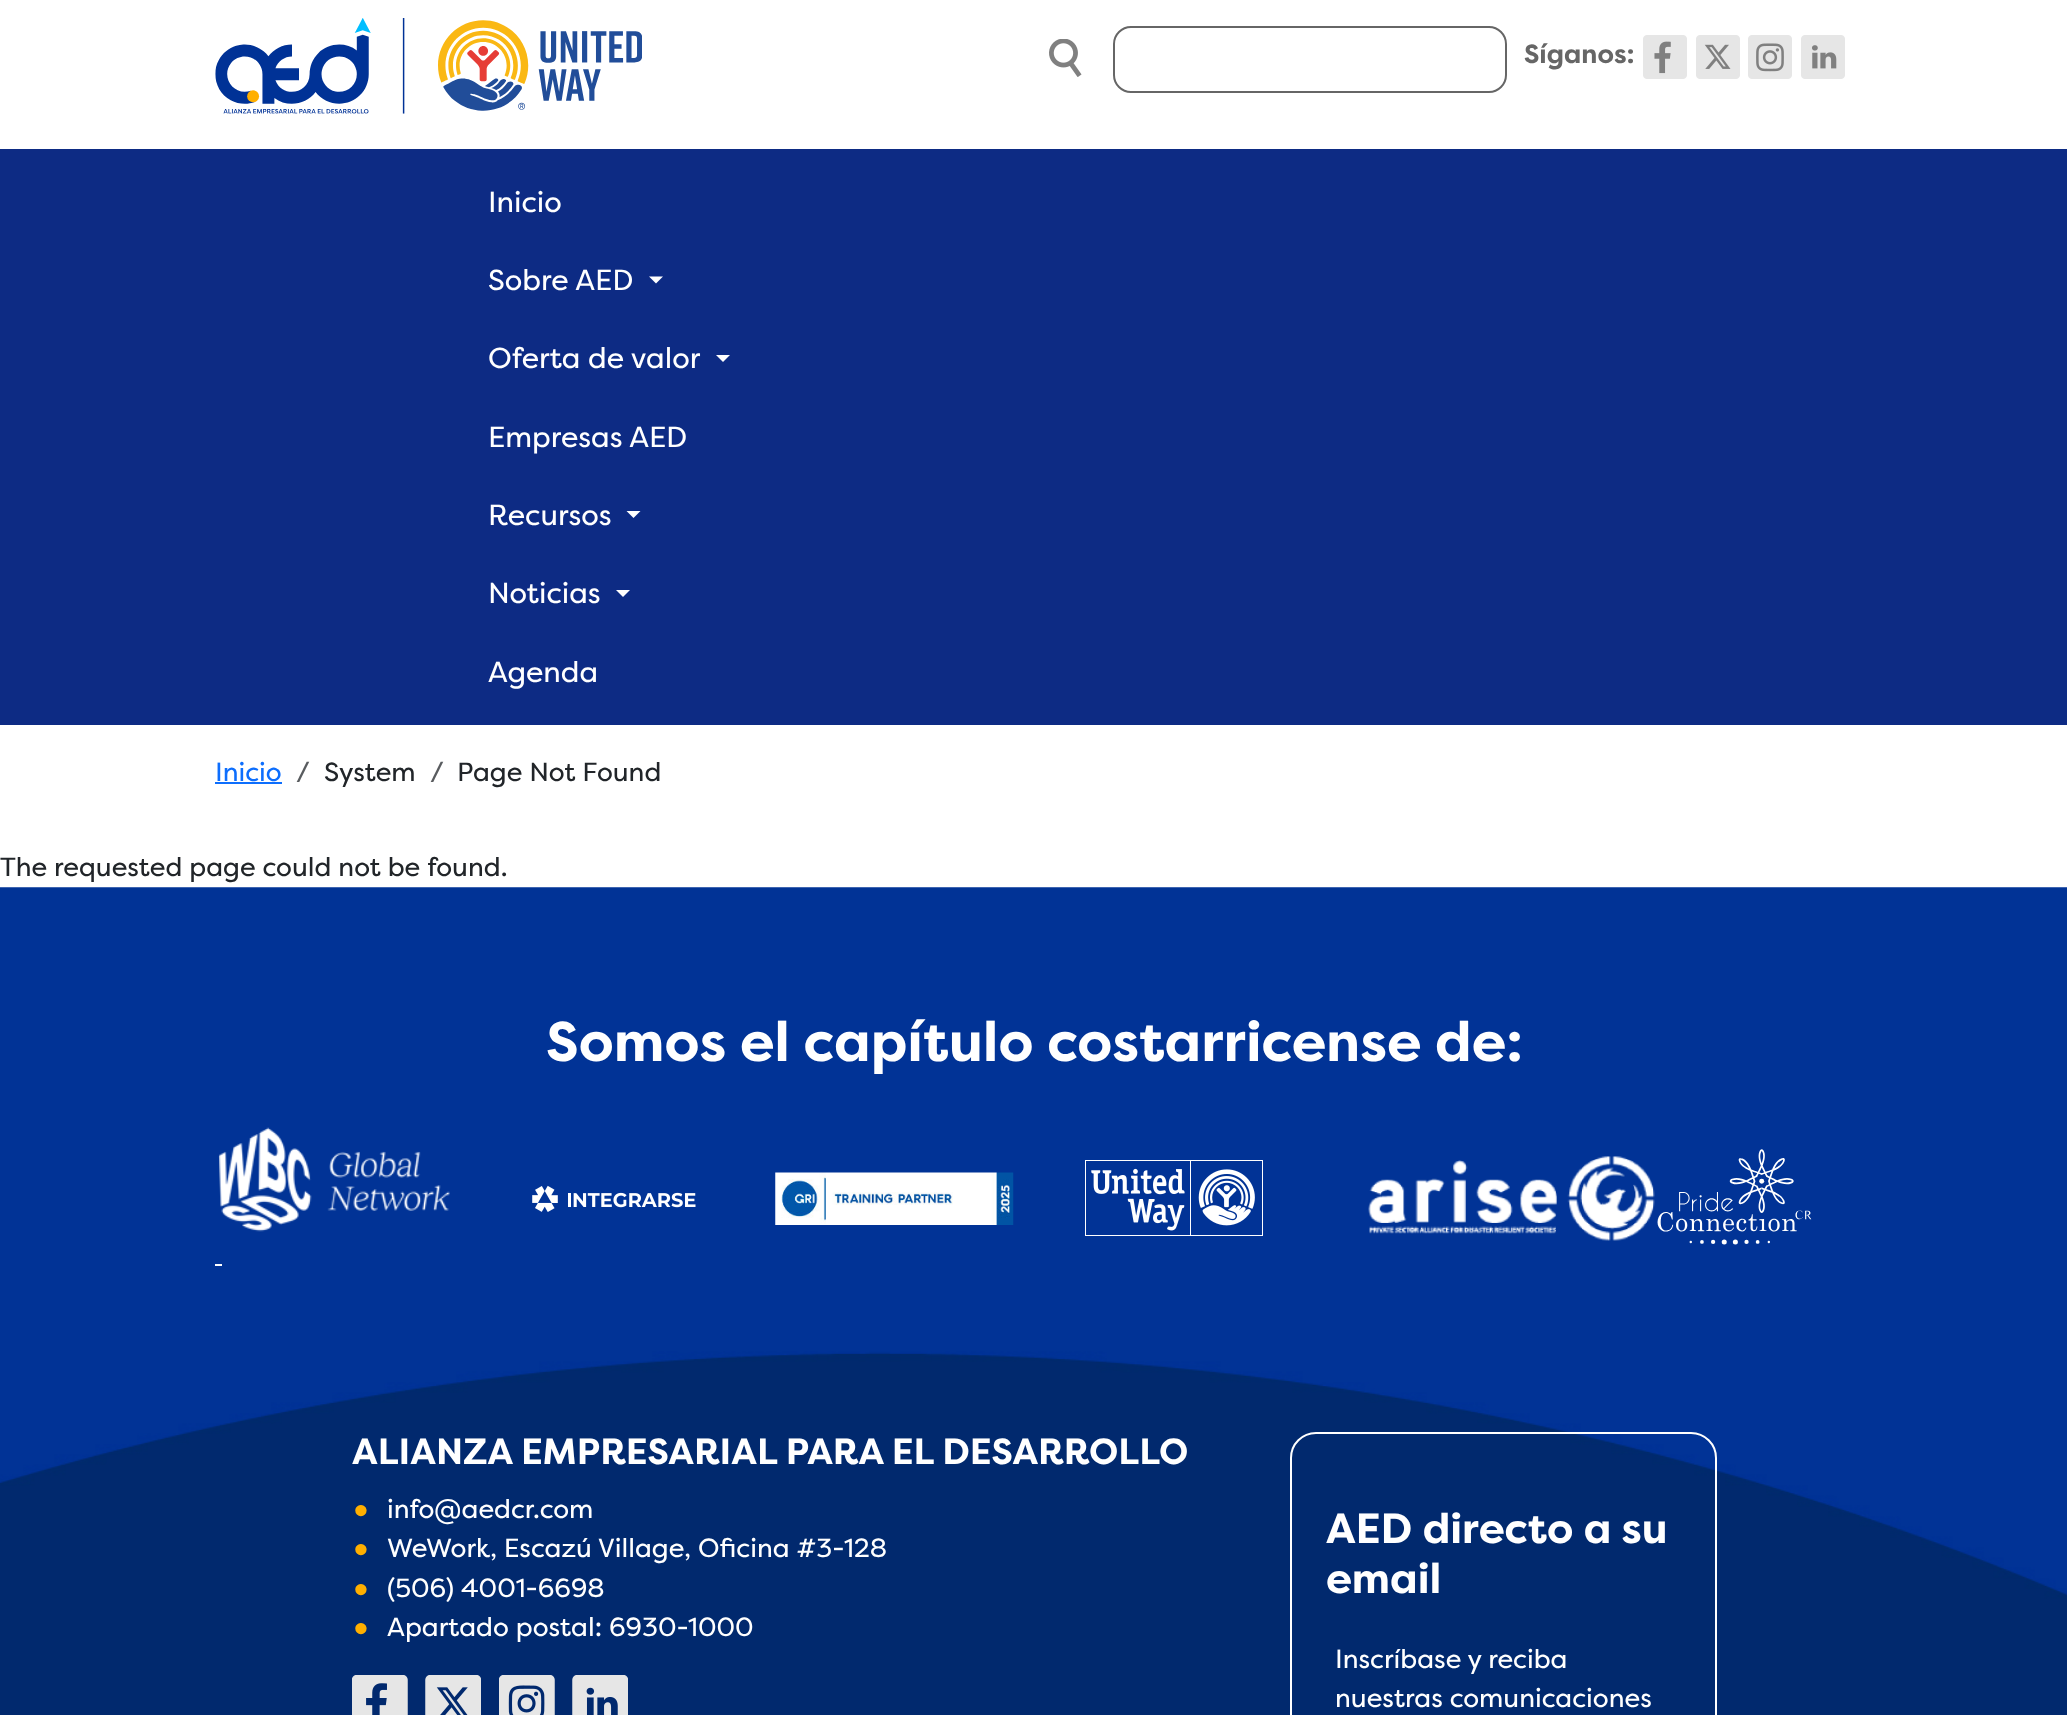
<svg xmlns="http://www.w3.org/2000/svg" width="2067" height="1715">
	<rect width="100%" height="100%" fill="#FFFFFF" />
	<image x="215" y="18" width="427" height="96" href="assets/img1.png" />
	<image x="1049" y="39" width="33" height="38" href="assets/img2.png" />
	<rect x="1114" y="27" width="392" height="65" rx="17" fill="none" stroke="#666666" stroke-width="2" />
	<text x="1524" y="63" font-family="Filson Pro" font-size="26.25" font-weight="700" fill="#666666">Síganos:</text>
	<image x="1643" y="35" width="44" height="44" href="assets/img3.png" />
	<image x="1696" y="35" width="44" height="44" href="assets/img4.png" />
	<image x="1748" y="35" width="44" height="44" href="assets/img5.png" />
	<image x="1801" y="35" width="44" height="44" href="assets/img6.png" />
	<rect x="0" y="149" width="2067" height="576" fill="#0D2B84" />
	<g font-family="Filson Pro" font-size="29" fill="#FFFFFF">
		<text x="488" y="212">Inicio</text>
		<text x="488" y="290">Sobre AED</text>
	</g>
	<path d="M649 276.5H663L656 283.5Z" fill="#FFFFFF" />
	<text x="488" y="368" font-family="Filson Pro" font-size="29" fill="#FFFFFF">Oferta de valor</text>
	<path d="M716 355H730L723 362Z" fill="#FFFFFF" />
	<g font-family="Filson Pro" font-size="29" fill="#FFFFFF">
		<text x="488" y="447">Empresas AED</text>
		<text x="488" y="525">Recursos</text>
	</g>
	<path d="M626.5 511H640.5L633.5 518Z" fill="#FFFFFF" />
	<text x="488" y="603" font-family="Filson Pro" font-size="29" fill="#FFFFFF">Noticias</text>
	<path d="M616 590H630L623 597Z" fill="#FFFFFF" />
	<text x="488" y="682" font-family="Filson Pro" font-size="29" fill="#FFFFFF">Agenda</text>
	<text x="215" y="781" font-family="Filson Pro" font-size="26.25" fill="#0D6EFD">Inicio</text>
	<rect x="215" y="782" width="67" height="2" fill="#0D6EFD" />
	<text x="296" y="781" font-family="Filson Pro" font-size="26.25" fill="#595C5F">/</text>
	<text x="324" y="781" font-family="Filson Pro" font-size="26.25" fill="#212529">System</text>
	<text x="430" y="781" font-family="Filson Pro" font-size="26.25" fill="#595C5F">/</text>
	<g font-family="Filson Pro" font-size="26.25" fill="#212529">
		<text x="457" y="781">Page Not Found</text>
		<text x="0" y="876">The requested page could not be found.</text>
	</g>
	<image x="0" y="887" width="2067" height="828" href="assets/img7.png" />
	<text x="546" y="1061" font-family="Filson Pro" font-size="55.75" font-weight="700" fill="#FFFFFF">Somos el capítulo costarricense de:</text>
	<image x="218" y="1127" width="232" height="105" href="assets/img8.png" />
	<rect x="215" y="1264" width="7" height="2" fill="#FFFFFF" />
	<image x="532" y="1185" width="164" height="27" href="assets/img9.png" />
	<image x="775" y="1172" width="239" height="53" href="assets/img10.png" />
	<image x="1085" y="1160" width="178" height="76" href="assets/img11.png" />
	<image x="1368" y="1156" width="287" height="85" href="assets/img12.png" />
	<image x="1657" y="1149" width="155" height="96" href="assets/img13.png" />
	<text x="352" y="1464" font-family="Filson Pro" font-size="36.4" font-weight="700" fill="#FFFFFF">ALIANZA EMPRESARIAL PARA EL DESARROLLO</text>
	<text x="353" y="1518" font-family="Liberation Sans" font-size="26.25" fill="#FFAF00">●</text>
	<text x="387" y="1518" font-family="Filson Pro" font-size="26.25" fill="#FFFFFF">info@aedcr.com</text>
	<text x="353" y="1557" font-family="Liberation Sans" font-size="26.25" fill="#FFAF00">●</text>
	<text x="387" y="1557" font-family="Filson Pro" font-size="26.25" fill="#FFFFFF">WeWork, Escazú Village, Oficina #3-128</text>
	<text x="353" y="1597" font-family="Liberation Sans" font-size="26.25" fill="#FFAF00">●</text>
	<text x="387" y="1597" font-family="Filson Pro" font-size="26.25" fill="#FFFFFF">(506) 4001-6698</text>
	<text x="353" y="1636" font-family="Liberation Sans" font-size="26.25" fill="#FFAF00">●</text>
	<text x="387" y="1636" font-family="Filson Pro" font-size="26.25" fill="#FFFFFF">Apartado postal: 6930-1000</text>
	<image x="352" y="1675" width="56" height="40" href="assets/img14.png" />
	<image x="425" y="1675" width="56" height="40" href="assets/img15.png" />
	<image x="499" y="1675" width="56" height="40" href="assets/img16.png" />
	<image x="572" y="1675" width="56" height="40" href="assets/img17.png" />
	<rect x="1291" y="1433" width="425" height="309" rx="25" fill="none" stroke="#FFFFFF" stroke-width="2" />
	<g font-family="Filson Pro" font-size="42" font-weight="700" fill="#FFFFFF">
		<text x="1326" y="1543">AED directo a su</text>
		<text x="1326" y="1593">email</text>
	</g>
	<g font-family="Filson Pro" font-size="26.25" fill="#FFFFFF">
		<text x="1335" y="1668">Inscríbase y reciba</text>
		<text x="1335" y="1707">nuestras comunicaciones</text>
	</g>
</svg>
